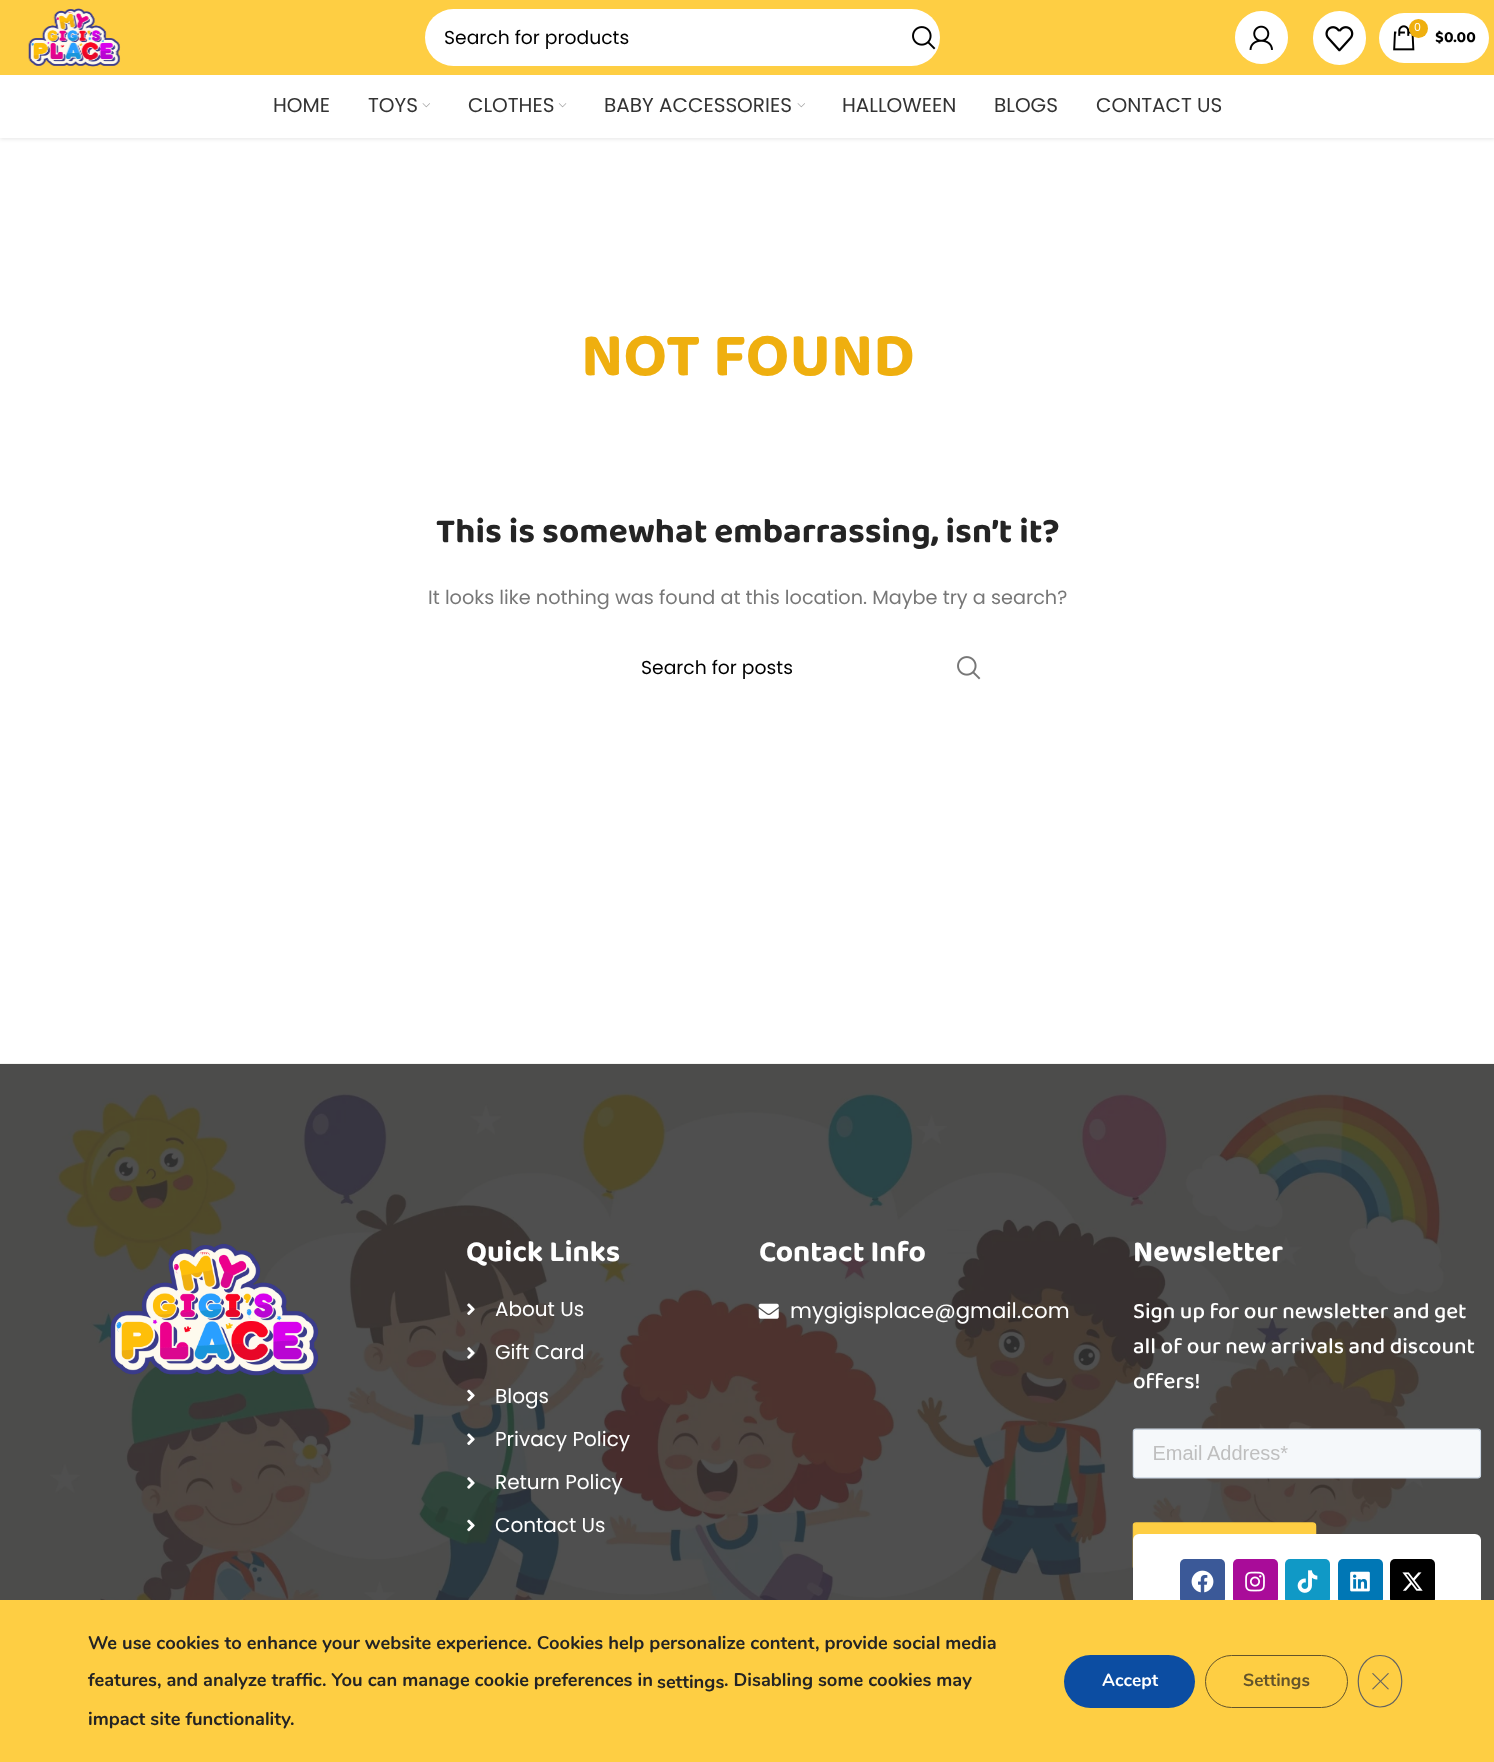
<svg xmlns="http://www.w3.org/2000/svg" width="1494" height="1762">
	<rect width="100%" height="100%" fill="#FFFFFF" />
	<rect x="0" y="1" width="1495" height="138" fill="#000000" fill-opacity="0.1" filter="blur(2px)" />
	<rect x="0" y="0" width="1494" height="75" fill="#FECE43" />
	<image x="28" y="8" width="93" height="59" href="assets/img1.png" />
	<rect x="425" y="9" width="515" height="57" rx="28.5" fill="#FFFFFF" />
	<text x="444" y="44" font-family="Poppins" font-size="18.75" fill="#000000">Search for products</text>
	<image x="912" y="26" width="24" height="24" href="assets/img2.png" />
	<circle cx="1261.5" cy="37.5" r="26.5" fill="#FFFFFF" />
	<circle cx="1261.5" cy="37.5" r="26" fill="none" stroke="#FFFFFF" stroke-opacity="0.25" />
	<image x="1249" y="25" width="24" height="25" href="assets/img3.png" />
	<rect x="1313" y="11" width="53" height="54" rx="26.5" fill="#FFFFFF" />
	<image x="1325" y="26" width="29" height="26" href="assets/img4.png" />
	<rect x="1379" y="13" width="110" height="50" rx="25" fill="#FFFFFF" />
	<image x="1393" y="25" width="22" height="26" href="assets/img5.png" />
	<circle cx="1418.5" cy="28.5" r="9.5" fill="#EFAF0F" />
	<text x="1414" y="31" font-family="Poppins" font-size="11" fill="#FFFFFF">0</text>
	<text x="1435" y="42" font-family="'Baloo 2'" font-size="16" font-weight="700" fill="#000000">$0.00</text>
	<rect x="0" y="75" width="1494" height="63" fill="#FFFFFF" />
	<g font-family="Poppins" font-size="20" fill="#333333">
		<text x="273" y="112">HOME</text>
		<text x="368" y="112">TOYS</text>
	</g>
	<image x="422" y="103" width="8" height="5" href="assets/img6.png" />
	<text x="468" y="112" font-family="Poppins" font-size="20" fill="#333333">CLOTHES</text>
	<image x="558" y="103" width="9" height="5" href="assets/img7.png" />
	<text x="604" y="112" font-family="Poppins" font-size="20" fill="#333333">BABY ACCESSORIES</text>
	<image x="797" y="103" width="8" height="5" href="assets/img6.png" />
	<g font-family="Poppins" font-size="20" fill="#333333">
		<text x="842" y="112">HALLOWEEN</text>
		<text x="994" y="112">BLOGS</text>
		<text x="1096" y="112">CONTACT US</text>
	</g>
	<text x="581" y="375" font-family="'Baloo 2'" font-size="62.75" font-weight="700" fill="#EFAF0F">NOT FOUND</text>
	<text x="436" y="542" font-family="'Baloo 2'" font-size="35" font-weight="700" fill="#242424">This is somewhat embarrassing, isn’t it?</text>
	<text x="428" y="604" font-family="Poppins" font-size="19.25" fill="#777777">It looks like nothing was found at this location. Maybe try a search?</text>
	<text x="641" y="674" font-family="Poppins" font-size="18.75" fill="#000000">Search for posts</text>
	<image x="957" y="656" width="24" height="24" href="assets/img8.png" />
	<image x="0" y="1063" width="1494" height="537" href="assets/img9.png" />
	<image x="110" y="1243" width="209" height="133" href="assets/img10.png" />
	<text x="466" y="1261" font-family="'Baloo 2'" font-size="30" font-weight="700" fill="#FFFFFF">Quick Links</text>
	<image x="467" y="1303" width="8" height="12" href="assets/img11.png" />
	<text x="495" y="1316" font-family="Poppins" font-size="20" fill="#FFFFFF">About Us</text>
	<image x="467" y="1347" width="8" height="12" href="assets/img12.png" />
	<text x="495" y="1359" font-family="Poppins" font-size="20" fill="#FFFFFF">Gift Card</text>
	<image x="467" y="1389" width="8" height="13" href="assets/img13.png" />
	<text x="495" y="1403" font-family="Poppins" font-size="20" fill="#FFFFFF">Blogs</text>
	<image x="467" y="1433" width="8" height="12" href="assets/img14.png" />
	<text x="495" y="1446" font-family="Poppins" font-size="20" fill="#FFFFFF">Privacy Policy</text>
	<image x="467" y="1477" width="8" height="12" href="assets/img15.png" />
	<text x="495" y="1489" font-family="Poppins" font-size="20" fill="#FFFFFF">Return Policy</text>
	<image x="467" y="1519" width="8" height="13" href="assets/img16.png" />
	<text x="495" y="1532" font-family="Poppins" font-size="20" fill="#FFFFFF">Contact Us</text>
	<text x="759" y="1261" font-family="'Baloo 2'" font-size="30" font-weight="700" fill="#FFFFFF">Contact Info</text>
	<image x="758" y="1303" width="21" height="16" href="assets/img17.png" />
	<text x="790" y="1318" font-family="Poppins" font-size="21.25" fill="#FFFFFF">mygigisplace@gmail.com</text>
	<text x="1133" y="1261" font-family="'Baloo 2'" font-size="30" font-weight="700" fill="#FFFFFF">Newsletter</text>
	<g font-family="'Baloo 2'" font-size="22.5" font-weight="500" fill="#FFFFFF">
		<text x="1133" y="1318">Sign up for our newsletter and get</text>
		<text x="1133" y="1353">all of our new arrivals and discount</text>
		<text x="1133" y="1388">offers!</text>
	</g>
	<image x="1132" y="1428" width="350" height="140" href="assets/img18.png" />
	<rect x="1133" y="1534" width="348" height="95" rx="6" fill="#FFFFFF" />
	<rect x="1180" y="1559" width="45" height="45" rx="5" fill="#3B5998" />
	<image x="1191" y="1570" width="23" height="23" href="assets/img19.png" />
	<rect x="1233" y="1559" width="45" height="45" rx="5" fill="#A90C99" />
	<image x="1245" y="1571" width="20" height="21" href="assets/img20.png" />
	<rect x="1285" y="1559" width="45" height="45" rx="5" fill="#1099C6" />
	<image x="1297" y="1570" width="21" height="23" href="assets/img21.png" />
	<rect x="1338" y="1559" width="45" height="45" rx="5" fill="#0077B5" />
	<image x="1350" y="1571" width="20" height="21" href="assets/img22.png" />
	<rect x="1390" y="1559" width="45" height="45" rx="5" fill="#000000" />
	<image x="1402" y="1572" width="21" height="19" href="assets/img23.png" />
	<rect x="0" y="1600" width="1494" height="162" fill="#FECE43" />
	<g font-family="Nunito" font-size="18.35" font-weight="700" fill="#242424">
		<text x="88" y="1649">We use cookies to enhance your website experience. Cookies help personalize content, provide social media</text>
		<text x="88" y="1686">features, and analyze traffic. You can manage cookie preferences in</text>
		<text x="657" y="1688">settings</text>
		<text x="724" y="1686">. Disabling some cookies may</text>
		<text x="88" y="1725">impact site functionality.</text>
	</g>
	<rect x="1064" y="1655" width="131" height="53" rx="26.5" fill="#0C4DA2" />
	<text x="1102" y="1686" font-family="Nunito" font-size="17.5" font-weight="700" fill="#FFFFFF">Accept</text>
	<rect x="1205.5" y="1655.5" width="142" height="52" rx="26" fill="none" stroke="#63542B" />
	<text x="1243" y="1686" font-family="Nunito" font-size="17.5" font-weight="700" fill="#63542B">Settings</text>
	<path d="M1380 1655.5C1409 1655.5 1409 1707 1380 1707C1351 1707 1351 1655.5 1380 1655.5Z" fill="none" stroke="#626262" stroke-width="1.2" />
	<path d="M1388 1673L1389 1673.5L1373 1689.5L1372 1689Z" fill="#626262" />
	<path d="M1372 1673.5L1373 1673L1389 1689L1388 1689.5Z" fill="#626262" />
</svg>
